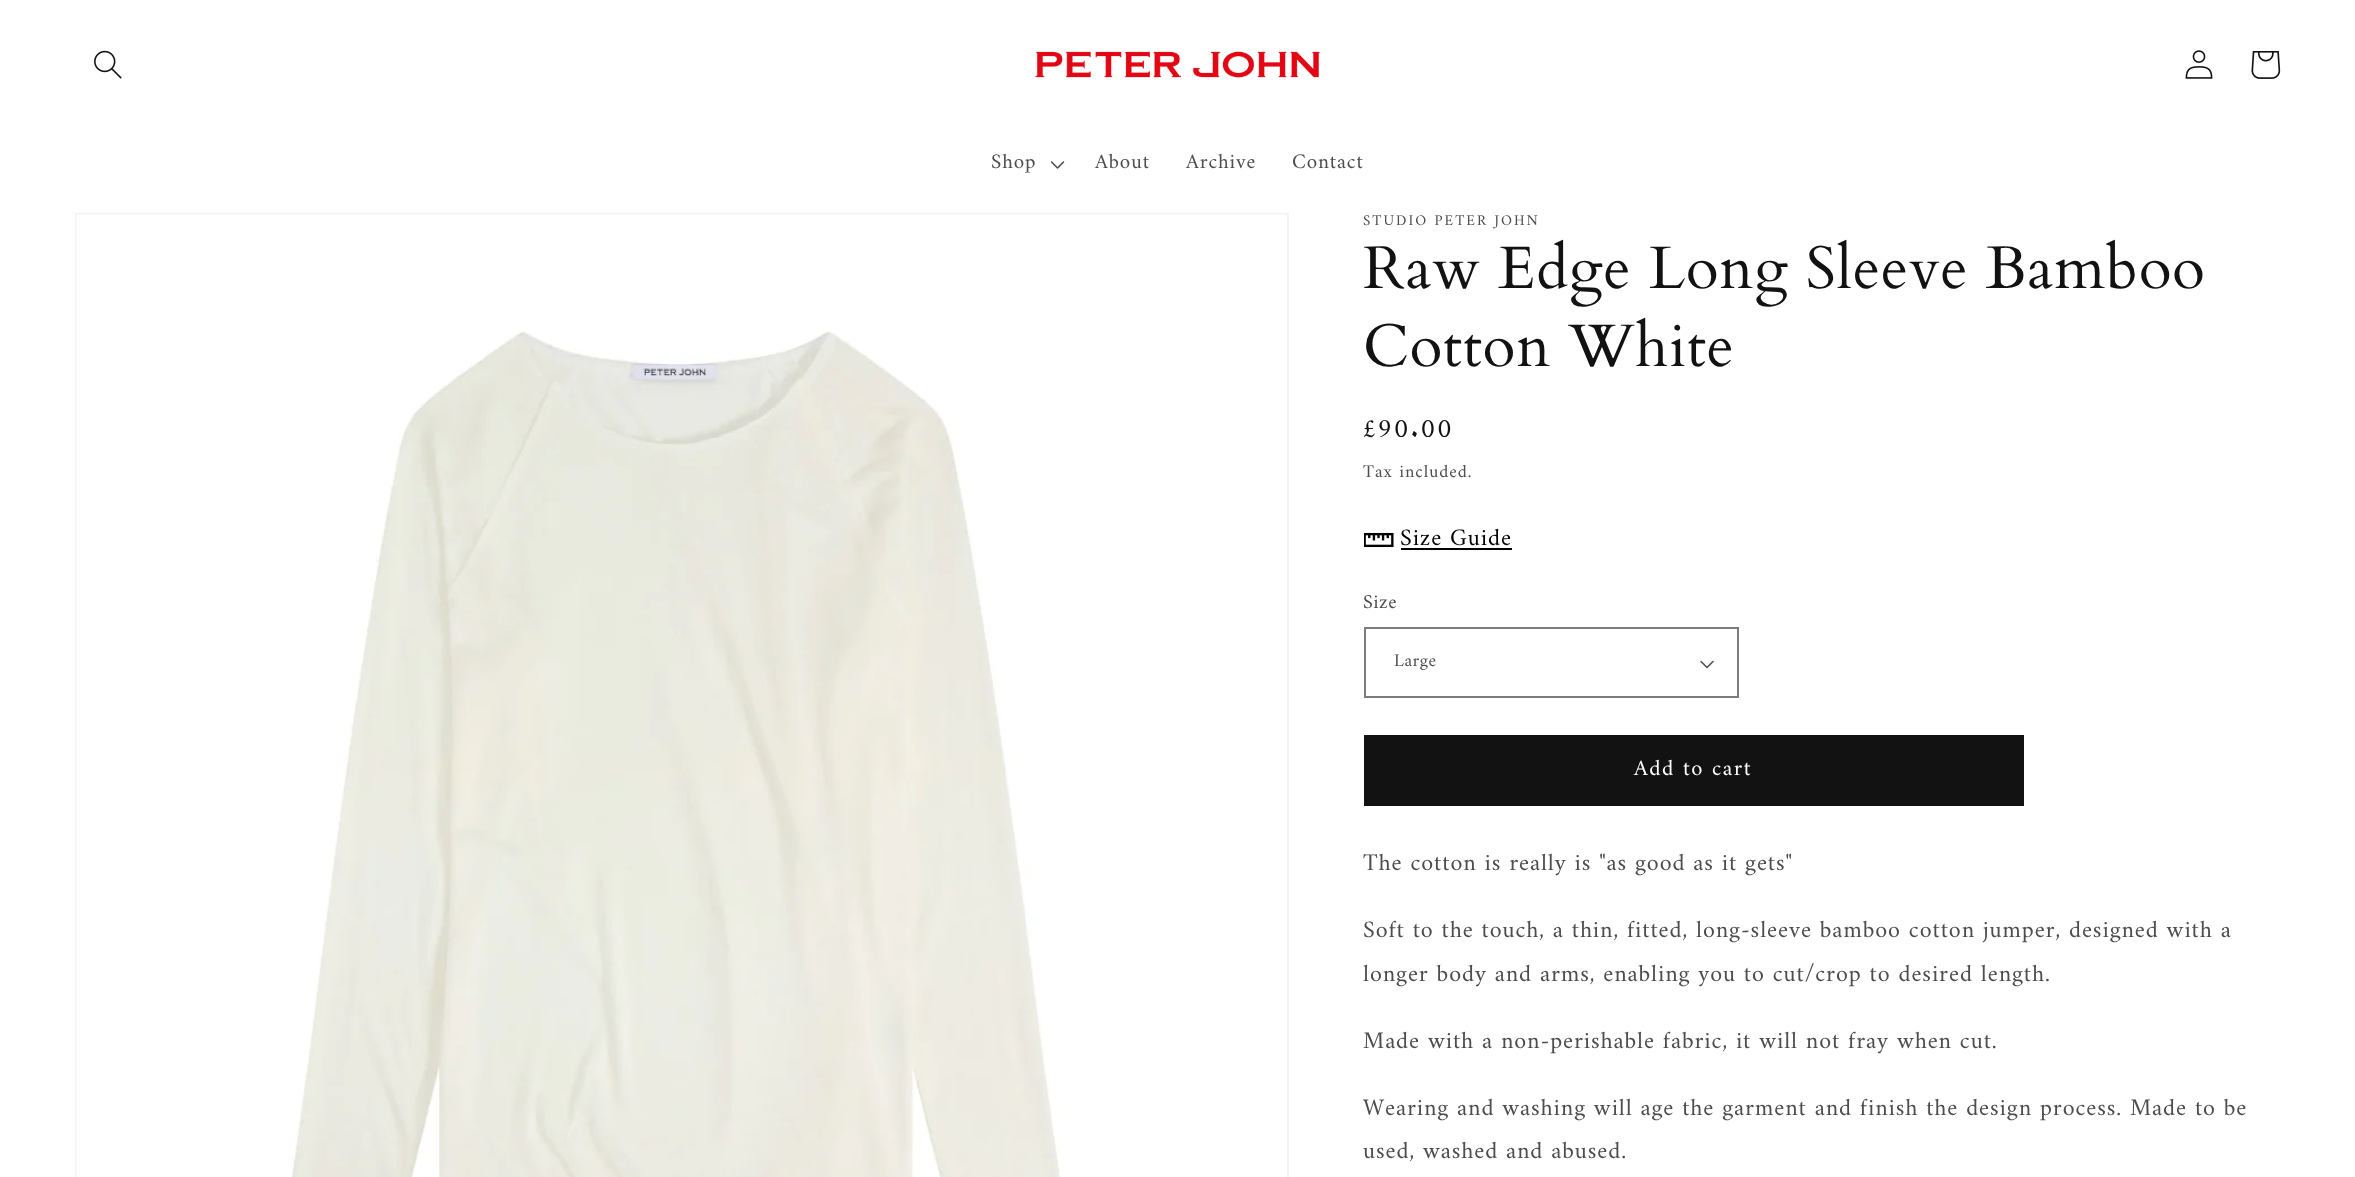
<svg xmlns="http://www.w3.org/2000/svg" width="2355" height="1177">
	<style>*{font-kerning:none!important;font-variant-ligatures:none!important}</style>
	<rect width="100%" height="100%" fill="#FFFFFF" />
	<image x="94" y="50" width="28" height="29" href="assets/img1.png" />
	<image x="1035" y="51" width="285" height="27" href="assets/img2.png" />
	<image x="2185" y="50" width="28" height="29" href="assets/img3.png" />
	<image x="2251" y="51" width="30" height="28" href="assets/img4.png" />
	<text x="991" y="168" font-family="Amiri" font-size="21" letter-spacing="0.9" fill="#4D4D4D">Shop</text>
	<image x="1050" y="161" width="15" height="8" href="assets/img5.png" />
	<g font-family="Amiri" font-size="21" letter-spacing="0.9" fill="#4D4D4D">
		<text x="1095" y="168">About</text>
		<text x="1186" y="168">Archive</text>
		<text x="1292" y="168">Contact</text>
	</g>
	<rect x="76" y="214" width="1212" height="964" fill="none" stroke="#F3F3F3" stroke-width="2" />
	<image x="76" y="214" width="1211" height="963" href="assets/img6.png" />
	<text x="1363" y="225" font-family="Amiri" font-size="15" letter-spacing="2" fill="#4D4D4D">STUDIO PETER JOHN</text>
	<g font-family="Cardo" font-size="60" letter-spacing="0.9" fill="#121212">
		<text x="1363" y="288">Raw Edge Long Sleeve Bamboo</text>
		<text x="1363" y="366">Cotton White</text>
	</g>
	<text x="1363" y="437" font-family="Amiri" font-size="27" letter-spacing="2" fill="#121212">£90.00</text>
	<text x="1363" y="477" font-family="Amiri" font-size="18" letter-spacing="1" fill="#4D4D4D">Tax included.</text>
	<image x="1364" y="532" width="30" height="16" href="assets/img7.png" />
	<text x="1400" y="545" font-family="Amiri" font-size="24" letter-spacing="0.9" fill="#000000">Size Guide</text>
	<rect x="1401" y="548" width="111" height="2" fill="#000000" />
	<text x="1363" y="608" font-family="Amiri" font-size="20" letter-spacing="0.5" fill="#4D4D4D">Size</text>
	<image x="1700" y="660" width="14" height="9" href="assets/img8.png" />
	<rect x="1365" y="628" width="373" height="69" fill="none" stroke="#7D7D7D" stroke-width="2" />
	<text x="1394" y="666" font-family="Amiri" font-size="18" letter-spacing="0.5" fill="#4D4D4D">Large</text>
	<rect x="1364" y="735" width="660" height="71" fill="#121212" />
	<text x="1634" y="775" font-family="Amiri" font-size="22.5" letter-spacing="1.5" fill="#FFFFFF">Add to cart</text>
	<g font-family="Amiri" font-size="24" letter-spacing="0.9" fill="#4D4D4D">
		<text x="1363" y="870">The cotton is really is "as good as it gets"</text>
		<text x="1363" y="937">Soft to the touch, a thin, fitted, long-sleeve bamboo cotton jumper, designed with a</text>
		<text x="1363" y="981">longer body and arms, enabling you to cut/crop to desired length.</text>
		<text x="1363" y="1048">Made with a non-perishable fabric, it will not fray when cut.</text>
		<text x="1363" y="1115">Wearing and washing will age the garment and finish the design process. Made to be</text>
		<text x="1363" y="1158">used, washed and abused.</text>
	</g>
</svg>
